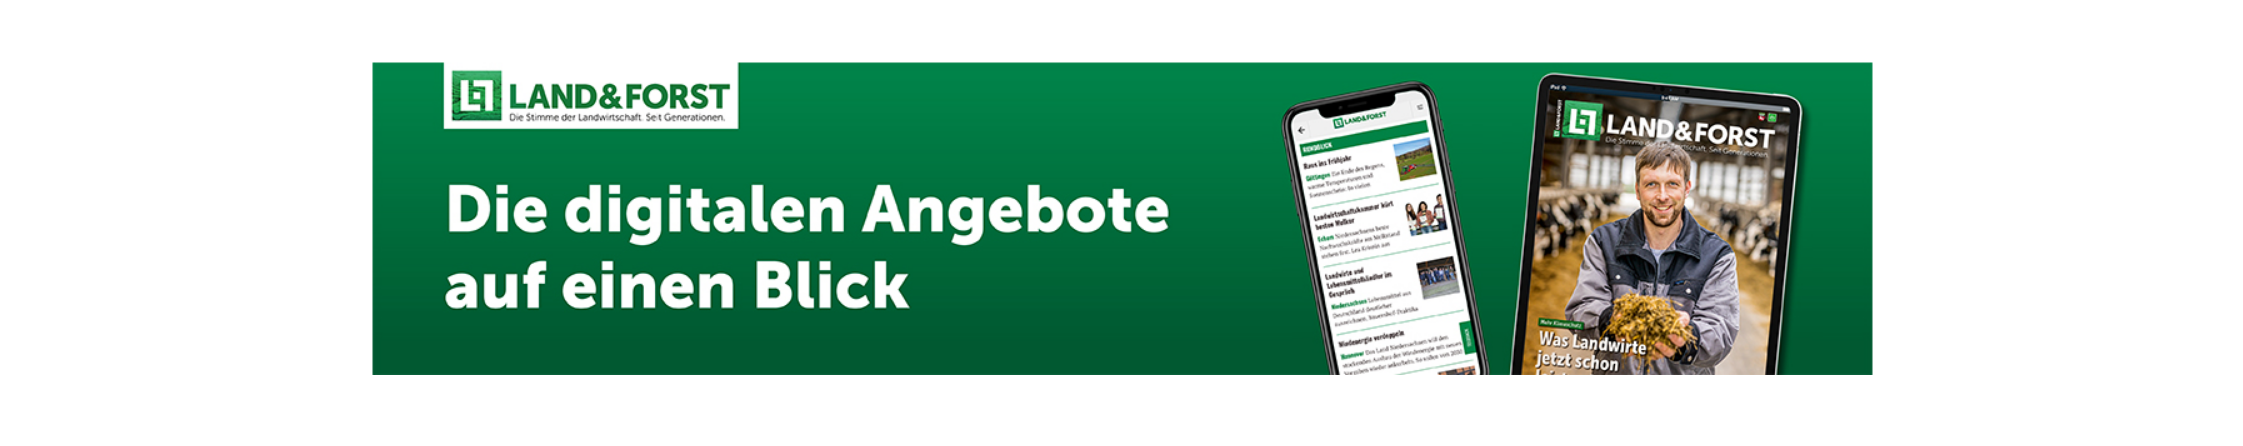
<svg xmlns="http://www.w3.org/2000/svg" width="2243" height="446">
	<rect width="100%" height="100%" fill="#FFFFFF" />
	<image x="372" y="62" width="1501" height="313" href="assets/img1.png" />
</svg>
